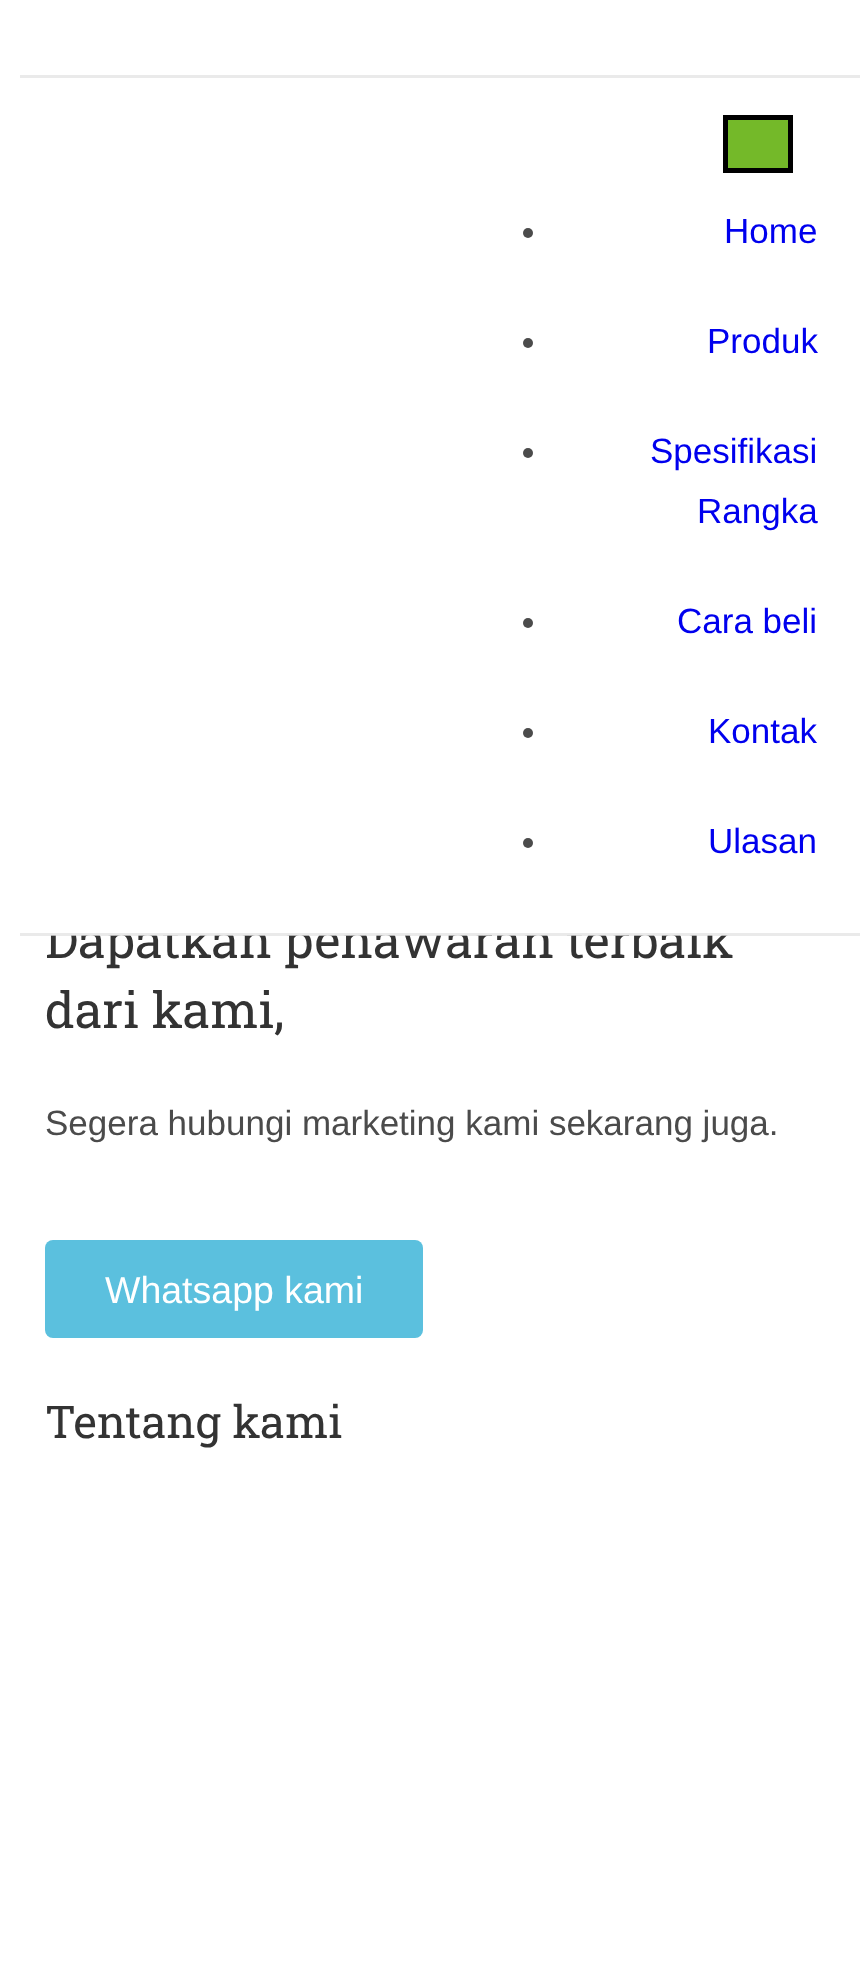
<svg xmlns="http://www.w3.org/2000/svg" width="860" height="1982">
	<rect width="100%" height="100%" fill="#FFFFFF" />
	<text x="45" y="958" font-family="Roboto Slab" font-size="50" fill="#333333">Dapatkan penawaran terbaik</text>
	<rect x="46" y="919" width="685" height="16" fill="#FFFFFF" />
	<rect x="20" y="75" width="840" height="3" fill="#EAEAEA" />
	<rect x="20" y="933" width="840" height="3" fill="#E2E2E2" fill-opacity="0.71" />
	<rect x="725.5" y="117.5" width="65" height="53" fill="#74B929" stroke="#000000" stroke-width="5" />
	<circle cx="528" cy="233" r="5" fill="#4B4B4B" />
	<text x="724" y="243" font-family="Liberation Sans" font-size="35" fill="#0000EE">Home</text>
	<circle cx="528" cy="343" r="5" fill="#4B4B4B" />
	<text x="707" y="353" font-family="Liberation Sans" font-size="35" fill="#0000EE">Produk</text>
	<circle cx="528" cy="453" r="5" fill="#4B4B4B" />
	<g font-family="Liberation Sans" font-size="35" fill="#0000EE">
		<text x="650" y="463">Spesifikasi</text>
		<text x="697" y="523">Rangka</text>
	</g>
	<circle cx="528" cy="623" r="5" fill="#4B4B4B" />
	<text x="677" y="633" font-family="Liberation Sans" font-size="35" fill="#0000EE">Cara beli</text>
	<circle cx="528" cy="733" r="5" fill="#4B4B4B" />
	<text x="708" y="743" font-family="Liberation Sans" font-size="35" fill="#0000EE">Kontak</text>
	<circle cx="528" cy="843" r="5" fill="#4B4B4B" />
	<text x="708" y="853" font-family="Liberation Sans" font-size="35" fill="#0000EE">Ulasan</text>
	<text x="45" y="1028" font-family="Roboto Slab" font-size="50" fill="#333333">dari kami,</text>
	<text x="45" y="1135" font-family="Liberation Sans" font-size="35" fill="#4B4B4B">Segera hubungi marketing kami sekarang juga.</text>
	<rect x="45" y="1240" width="378" height="98" rx="8" fill="#5BC0DE" />
	<text x="105" y="1303" font-family="Liberation Sans" font-size="37.5" fill="#FFFFFF">Whatsapp kami</text>
	<text x="45" y="1438" font-family="Roboto Slab" font-size="45" fill="#333333">Tentang kami</text>
</svg>
